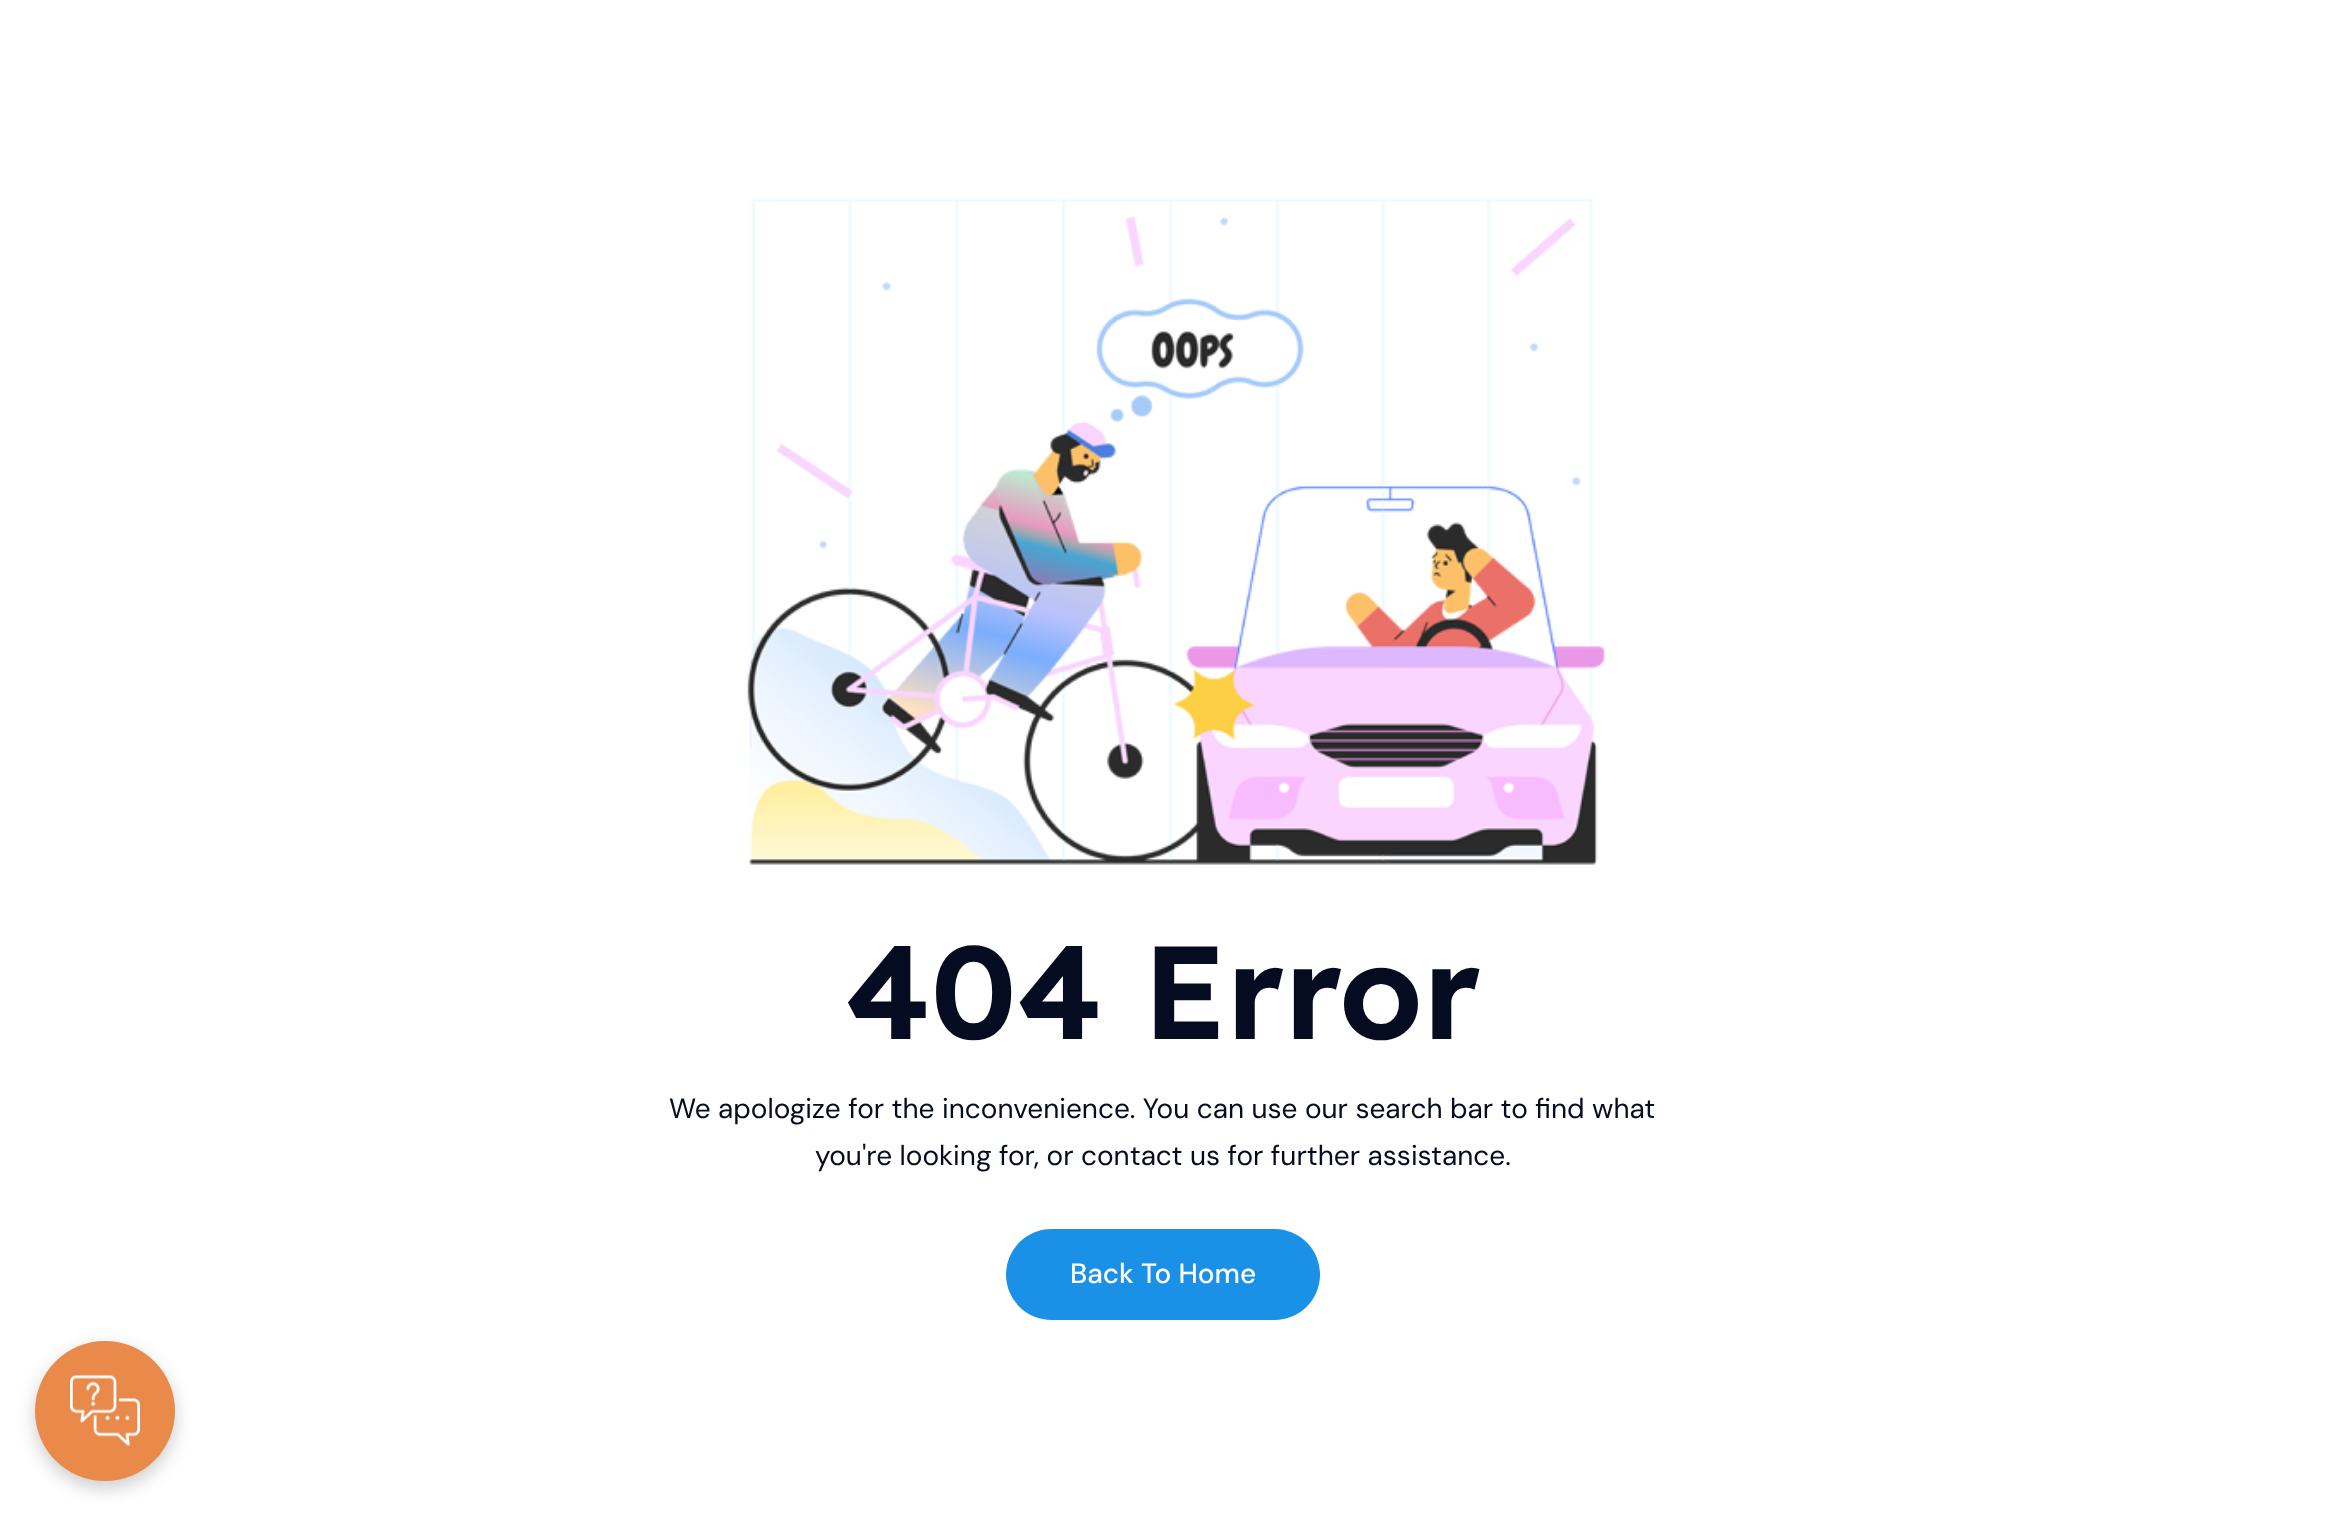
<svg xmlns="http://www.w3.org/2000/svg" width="2325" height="1515">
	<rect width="100%" height="100%" fill="#FFFFFF" />
	<image x="747" y="198" width="858" height="667" href="assets/img1.png" />
	<text x="845" y="1039" font-family="Lexend Deca" font-size="132" font-weight="600" fill="#050B20">404 Error</text>
	<g font-family="DM Sans" font-size="28" fill="#050B20">
		<text x="669" y="1118">We apologize for the inconvenience. You can use our search bar to find what</text>
		<text x="815" y="1165">you're looking for, or contact us for further assistance.</text>
	</g>
	<rect x="1006" y="1229" width="314" height="91" rx="45.5" fill="#1A90E6" />
	<text x="1070" y="1283" font-family="DM Sans" font-size="28" font-weight="500" fill="#FFFFFF">Back To Home</text>
	<rect x="35" y="1348" width="140" height="140" rx="70" fill="#000000" fill-opacity="0.2" filter="blur(9px)" />
	<circle cx="105" cy="1411" r="70" fill="#E9894A" />
	<image x="70" y="1375" width="70" height="71" href="assets/img2.png" />
</svg>
